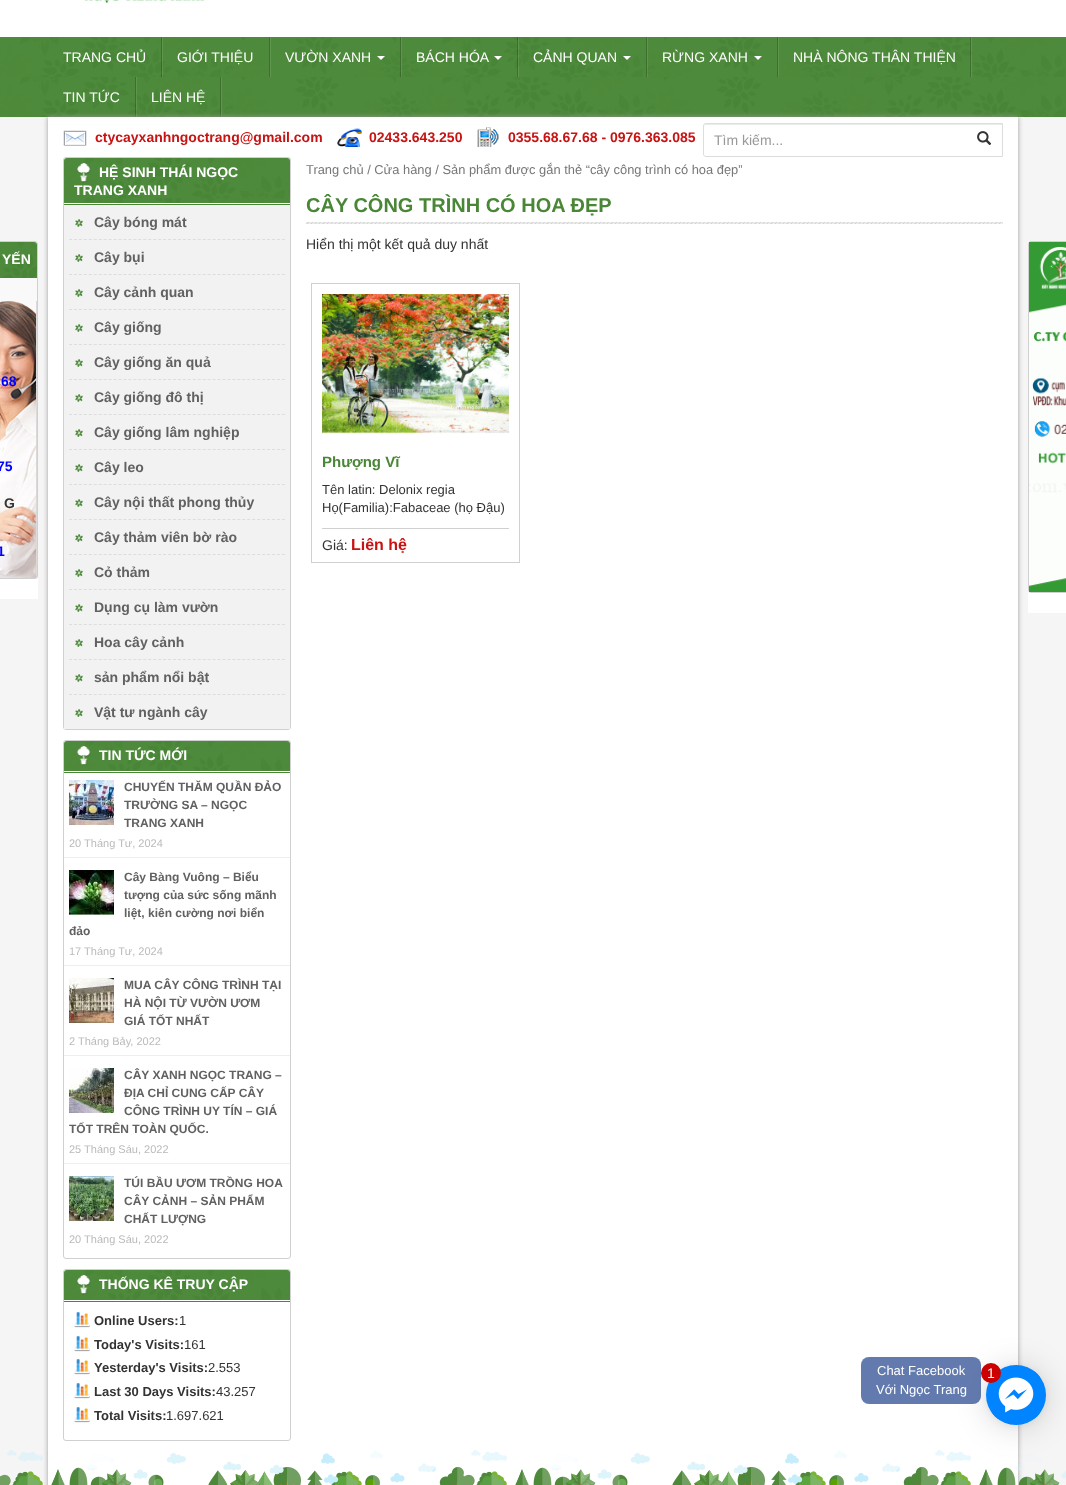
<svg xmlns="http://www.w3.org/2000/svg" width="1066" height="1485">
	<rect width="100%" height="100%" fill="#FFFFFF" />
	<image x="84" y="0" width="121" height="3" href="assets/img1.png" />
	<image x="0" y="37" width="1066" height="80" href="assets/img2.png" />
	<rect x="162" y="37" width="1" height="40" fill="#FFFFFF" fill-opacity="0.1" />
	<rect x="161" y="37" width="1" height="40" fill="#000000" fill-opacity="0.2" />
	<text x="63" y="62" font-family="Liberation Sans" font-size="14" fill="#FFFFFF">TRANG CHỦ</text>
	<rect x="270" y="37" width="1" height="40" fill="#609650" />
	<rect x="269" y="37" width="1" height="40" fill="#3E6E30" />
	<text x="177" y="62" font-family="Liberation Sans" font-size="14" fill="#FFFFFF">GIỚI THIỆU</text>
	<rect x="401" y="37" width="1" height="40" fill="#FFFFFF" fill-opacity="0.1" />
	<rect x="400" y="37" width="1" height="40" fill="#000000" fill-opacity="0.2" />
	<text x="285" y="62" font-family="Liberation Sans" font-size="14" fill="#FFFFFF">VƯỜN XANH</text>
	<path d="M377 56H385L381 60Z" fill="#FFFFFF" />
	<rect x="518" y="37" width="1" height="40" fill="#FFFFFF" fill-opacity="0.1" />
	<rect x="517" y="37" width="1" height="40" fill="#000000" fill-opacity="0.2" />
	<text x="416" y="62" font-family="Liberation Sans" font-size="14" fill="#FFFFFF">BÁCH HÓA</text>
	<path d="M494 56H502L498 60Z" fill="#FFFFFF" />
	<rect x="647" y="37" width="1" height="40" fill="#FFFFFF" fill-opacity="0.1" />
	<rect x="646" y="37" width="1" height="40" fill="#000000" fill-opacity="0.2" />
	<text x="533" y="62" font-family="Liberation Sans" font-size="14" fill="#FFFFFF">CẢNH QUAN</text>
	<path d="M623 56H631L627 60Z" fill="#FFFFFF" />
	<rect x="778" y="37" width="1" height="40" fill="#FFFFFF" fill-opacity="0.1" />
	<rect x="777" y="37" width="1" height="40" fill="#3E6E30" />
	<text x="662" y="62" font-family="Liberation Sans" font-size="14" fill="#FFFFFF">RỪNG XANH</text>
	<path d="M754 56H762L758 60Z" fill="#FFFFFF" />
	<rect x="971" y="37" width="1" height="40" fill="#FFFFFF" fill-opacity="0.1" />
	<rect x="970" y="37" width="1" height="40" fill="#000000" fill-opacity="0.2" />
	<text x="793" y="62" font-family="Liberation Sans" font-size="14" fill="#FFFFFF">NHÀ NÔNG THÂN THIỆN</text>
	<rect x="136" y="77" width="1" height="40" fill="#FFFFFF" fill-opacity="0.1" />
	<rect x="135" y="77" width="1" height="40" fill="#000000" fill-opacity="0.2" />
	<text x="63" y="102" font-family="Liberation Sans" font-size="14" fill="#FFFFFF">TIN TỨC</text>
	<rect x="221" y="77" width="1" height="40" fill="#FFFFFF" fill-opacity="0.1" />
	<rect x="220" y="77" width="1" height="40" fill="#000000" fill-opacity="0.2" />
	<text x="151" y="102" font-family="Liberation Sans" font-size="14" fill="#FFFFFF">LIÊN HỆ</text>
	<rect x="0" y="117" width="1066" height="1368" fill="#F5F5F5" />
	<rect x="48" y="117" width="970" height="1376" fill="#9A9A9A" filter="blur(2.5px)" />
	<rect x="48" y="117" width="970" height="1368" fill="#FFFFFF" />
	<image x="63" y="130" width="24" height="16" href="assets/img3.png" />
	<text x="95" y="142" font-family="Liberation Sans" font-size="14" font-weight="700" fill="#C91212">ctycayxanhngoctrang@gmail.com</text>
	<image x="337" y="128" width="25" height="19" href="assets/img4.png" />
	<text x="369" y="142" font-family="Liberation Sans" font-size="14" font-weight="700" fill="#C91212">02433.643.250</text>
	<image x="477" y="127" width="22" height="20" href="assets/img5.png" />
	<text x="508" y="142" font-family="Liberation Sans" font-size="14" font-weight="700" fill="#C91212">0355.68.67.68 - 0976.363.085</text>
	<path d="M706 125H1002V124H705L704 127C704 126 705 125 706 125Z" fill="#ECECEC" />
	<path d="M706 123.5H1002.5V156.5H706C704.5 156.5 703.5 155.5 703.5 154V126C703.5 124.5 704.5 123.5 706 123.5Z" fill="none" stroke="#DDDDDD" />
	<text x="714" y="145" font-family="Liberation Sans" font-size="14" fill="#999999">Tìm kiếm...</text>
	<image x="977" y="131" width="15" height="14" href="assets/img6.png" />
	<rect x="0" y="241" width="38" height="358" fill="#FFFFFF" />
	<rect x="-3" y="241" width="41" height="338" rx="3" fill="#F9F9F9" />
	<image x="0" y="301" width="37" height="277" href="assets/img7.png" />
	<rect x="-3.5" y="241.5" width="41" height="337" rx="2.5" fill="none" stroke="#D0D0D0" />
	<image x="0" y="242" width="37" height="36" href="assets/img8.png" />
	<text x="2" y="264" font-family="Liberation Sans" font-size="14" font-weight="700" fill="#FFFFFF">YẾN</text>
	<g font-family="Liberation Sans" font-size="14" font-weight="700" fill="#0000FF">
		<text x="1" y="386">68</text>
		<text x="-3" y="471">75</text>
	</g>
	<text x="4" y="508" font-family="Liberation Sans" font-size="14" font-weight="700" fill="#333333">G</text>
	<text x="-3" y="556" font-family="Liberation Sans" font-size="14" font-weight="700" fill="#0000FF">1</text>
	<rect x="63.5" y="157.5" width="227" height="572" rx="2.5" fill="none" stroke="#D0D0D0" />
	<image x="64" y="158" width="226" height="45" href="assets/img9.png" />
	<image x="77" y="163" width="14" height="20" href="assets/img10.png" />
	<g font-family="Liberation Sans" font-size="14" font-weight="700" fill="#FFFFFF">
		<text x="99" y="177">HỆ SINH THÁI NGỌC</text>
		<text x="74" y="195">TRANG XANH</text>
	</g>
	<rect x="64" y="205" width="226" height="524" fill="#F2F2F2" />
	<rect x="64" y="204" width="226" height="1" fill="#498636" />
	<image x="75" y="219" width="8" height="8" href="assets/img11.png" />
	<path d="M69 239.5H285" fill="none" stroke="#DDDDDD" stroke-dasharray="3 1.95" />
	<text x="94" y="227" font-family="Liberation Sans" font-size="14" font-weight="700" fill="#616161">Cây bóng mát</text>
	<image x="75" y="254" width="8" height="8" href="assets/img11.png" />
	<path d="M69 274.5H285" fill="none" stroke="#DDDDDD" stroke-dasharray="3 1.95" />
	<text x="94" y="262" font-family="Liberation Sans" font-size="14" font-weight="700" fill="#616161">Cây bụi</text>
	<image x="75" y="289" width="8" height="8" href="assets/img11.png" />
	<path d="M69 309.5H285" fill="none" stroke="#DDDDDD" stroke-dasharray="3 1.95" />
	<text x="94" y="297" font-family="Liberation Sans" font-size="14" font-weight="700" fill="#616161">Cây cảnh quan</text>
	<image x="75" y="324" width="8" height="8" href="assets/img11.png" />
	<path d="M69 344.5H285" fill="none" stroke="#DDDDDD" stroke-dasharray="3 1.95" />
	<text x="94" y="332" font-family="Liberation Sans" font-size="14" font-weight="700" fill="#616161">Cây giống</text>
	<image x="75" y="359" width="8" height="8" href="assets/img11.png" />
	<path d="M69 379.5H285" fill="none" stroke="#DDDDDD" stroke-dasharray="3 1.95" />
	<text x="94" y="367" font-family="Liberation Sans" font-size="14" font-weight="700" fill="#616161">Cây giống ăn quả</text>
	<image x="75" y="394" width="8" height="8" href="assets/img11.png" />
	<path d="M69 414.5H285" fill="none" stroke="#DDDDDD" stroke-dasharray="3 1.95" />
	<text x="94" y="402" font-family="Liberation Sans" font-size="14" font-weight="700" fill="#616161">Cây giống đô thị</text>
	<image x="75" y="429" width="8" height="8" href="assets/img11.png" />
	<path d="M69 449.5H285" fill="none" stroke="#DDDDDD" stroke-dasharray="3 1.95" />
	<text x="94" y="437" font-family="Liberation Sans" font-size="14" font-weight="700" fill="#616161">Cây giống lâm nghiệp</text>
	<image x="75" y="464" width="8" height="8" href="assets/img11.png" />
	<path d="M69 484.5H285" fill="none" stroke="#DDDDDD" stroke-dasharray="3 1.95" />
	<text x="94" y="472" font-family="Liberation Sans" font-size="14" font-weight="700" fill="#616161">Cây leo</text>
	<image x="75" y="499" width="8" height="8" href="assets/img11.png" />
	<path d="M69 519.5H285" fill="none" stroke="#DDDDDD" stroke-dasharray="3 1.95" />
	<text x="94" y="507" font-family="Liberation Sans" font-size="14" font-weight="700" fill="#616161">Cây nội thất phong thủy</text>
	<image x="75" y="534" width="8" height="8" href="assets/img11.png" />
	<path d="M69 554.5H285" fill="none" stroke="#DDDDDD" stroke-dasharray="3 1.95" />
	<text x="94" y="542" font-family="Liberation Sans" font-size="14" font-weight="700" fill="#616161">Cây thảm viên bờ rào</text>
	<image x="75" y="569" width="8" height="8" href="assets/img11.png" />
	<path d="M69 589.5H285" fill="none" stroke="#DDDDDD" stroke-dasharray="3 1.95" />
	<text x="94" y="577" font-family="Liberation Sans" font-size="14" font-weight="700" fill="#616161">Cỏ thảm</text>
	<image x="75" y="604" width="8" height="8" href="assets/img11.png" />
	<path d="M69 624.5H285" fill="none" stroke="#DDDDDD" stroke-dasharray="3 1.95" />
	<text x="94" y="612" font-family="Liberation Sans" font-size="14" font-weight="700" fill="#616161">Dụng cụ làm vườn</text>
	<image x="75" y="639" width="8" height="8" href="assets/img11.png" />
	<path d="M69 659.5H285" fill="none" stroke="#DDDDDD" stroke-dasharray="3 1.95" />
	<text x="94" y="647" font-family="Liberation Sans" font-size="14" font-weight="700" fill="#616161">Hoa cây cảnh</text>
	<image x="75" y="674" width="8" height="8" href="assets/img11.png" />
	<path d="M69 694.5H285" fill="none" stroke="#DDDDDD" stroke-dasharray="3 1.95" />
	<text x="94" y="682" font-family="Liberation Sans" font-size="14" font-weight="700" fill="#616161">sản phẩm nổi bật</text>
	<image x="75" y="709" width="8" height="8" href="assets/img11.png" />
	<text x="94" y="717" font-family="Liberation Sans" font-size="14" font-weight="700" fill="#616161">Vật tư ngành cây</text>
	<rect x="63.5" y="740.5" width="227" height="518" rx="2.5" fill="none" stroke="#D0D0D0" />
	<image x="64" y="741" width="226" height="30" href="assets/img12.png" />
	<image x="77" y="746" width="14" height="20" href="assets/img13.png" />
	<text x="99" y="760" font-family="Liberation Sans" font-size="14" font-weight="700" fill="#FFFFFF">TIN TỨC MỚI</text>
	<rect x="64" y="772" width="226" height="1" fill="#498636" />
	<rect x="64" y="857" width="226" height="1" fill="#EEEEEE" />
	<image x="69" y="780" width="45" height="45" href="assets/img14.png" />
	<g font-family="Liberation Sans" font-size="12" font-weight="700" fill="#616161">
		<text x="124" y="791">CHUYẾN THĂM QUẦN ĐẢO</text>
		<text x="124" y="809">TRƯỜNG SA – NGỌC</text>
		<text x="124" y="827">TRANG XANH</text>
	</g>
	<text x="69" y="847" font-family="Liberation Sans" font-size="11" fill="#BBBBBB">20 Tháng Tư, 2024</text>
	<rect x="64" y="965" width="226" height="1" fill="#EEEEEE" />
	<image x="69" y="870" width="45" height="45" href="assets/img15.png" />
	<g font-family="Liberation Sans" font-size="12" font-weight="700" fill="#616161">
		<text x="124" y="881">Cây Bàng Vuông – Biểu</text>
		<text x="124" y="899">tượng của sức sống mãnh</text>
		<text x="124" y="917">liệt, kiên cường nơi biển</text>
		<text x="69" y="935">đảo</text>
	</g>
	<text x="69" y="955" font-family="Liberation Sans" font-size="11" fill="#BBBBBB">17 Tháng Tư, 2024</text>
	<rect x="64" y="1055" width="226" height="1" fill="#EEEEEE" />
	<image x="69" y="978" width="45" height="45" href="assets/img16.png" />
	<g font-family="Liberation Sans" font-size="12" font-weight="700" fill="#616161">
		<text x="124" y="989">MUA CÂY CÔNG TRÌNH TẠI</text>
		<text x="124" y="1007">HÀ NỘI TỪ VƯỜN ƯƠM</text>
		<text x="124" y="1025">GIÁ TỐT NHẤT</text>
	</g>
	<text x="69" y="1045" font-family="Liberation Sans" font-size="11" fill="#BBBBBB">2 Tháng Bảy, 2022</text>
	<rect x="64" y="1163" width="226" height="1" fill="#EEEEEE" />
	<image x="69" y="1068" width="45" height="45" href="assets/img17.png" />
	<g font-family="Liberation Sans" font-size="12" font-weight="700" fill="#616161">
		<text x="124" y="1079">CÂY XANH NGỌC TRANG –</text>
		<text x="124" y="1097">ĐỊA CHỈ CUNG CẤP CÂY</text>
		<text x="124" y="1115">CÔNG TRÌNH UY TÍN – GIÁ</text>
		<text x="69" y="1133">TỐT TRÊN TOÀN QUỐC.</text>
	</g>
	<text x="69" y="1153" font-family="Liberation Sans" font-size="11" fill="#BBBBBB">25 Tháng Sáu, 2022</text>
	<image x="69" y="1176" width="45" height="45" href="assets/img18.png" />
	<g font-family="Liberation Sans" font-size="12" font-weight="700" fill="#616161">
		<text x="124" y="1187">TÚI BẦU ƯƠM TRỒNG HOA</text>
		<text x="124" y="1205">CÂY CẢNH – SẢN PHẨM</text>
		<text x="124" y="1223">CHẤT LƯỢNG</text>
	</g>
	<text x="69" y="1243" font-family="Liberation Sans" font-size="11" fill="#BBBBBB">20 Tháng Sáu, 2022</text>
	<rect x="63.5" y="1269.5" width="227" height="171" rx="2.5" fill="none" stroke="#D0D0D0" />
	<image x="64" y="1270" width="226" height="30" href="assets/img12.png" />
	<image x="77" y="1275" width="14" height="20" href="assets/img10.png" />
	<text x="99" y="1289" font-family="Liberation Sans" font-size="14" font-weight="700" fill="#FFFFFF">THỐNG KÊ TRUY CẬP</text>
	<rect x="64" y="1301" width="226" height="1" fill="#498636" />
	<image x="74" y="1312" width="16" height="16" href="assets/img19.png" />
	<text x="94" y="1325" font-family="Liberation Sans" font-size="13" font-weight="700" fill="#333333">Online Users:</text>
	<text x="179" y="1325" font-family="Liberation Sans" font-size="13" fill="#333333">1</text>
	<image x="74" y="1336" width="16" height="16" href="assets/img19.png" />
	<text x="94" y="1349" font-family="Liberation Sans" font-size="13" font-weight="700" fill="#333333">Today's Visits:</text>
	<text x="184" y="1349" font-family="Liberation Sans" font-size="13" fill="#333333">161</text>
	<image x="74" y="1359" width="16" height="16" href="assets/img19.png" />
	<text x="94" y="1372" font-family="Liberation Sans" font-size="13" font-weight="700" fill="#333333">Yesterday's Visits:</text>
	<text x="208" y="1372" font-family="Liberation Sans" font-size="13" fill="#333333">2.553</text>
	<image x="74" y="1383" width="16" height="16" href="assets/img19.png" />
	<text x="94" y="1396" font-family="Liberation Sans" font-size="13" font-weight="700" fill="#333333">Last 30 Days Visits:</text>
	<text x="216" y="1396" font-family="Liberation Sans" font-size="13" fill="#333333">43.257</text>
	<image x="74" y="1407" width="16" height="16" href="assets/img19.png" />
	<text x="94" y="1420" font-family="Liberation Sans" font-size="13" font-weight="700" fill="#333333">Total Visits:</text>
	<text x="166" y="1420" font-family="Liberation Sans" font-size="13" fill="#333333">1.697.621</text>
	<text x="306" y="174" font-family="Liberation Sans" font-size="12.9" fill="#777777">Trang chủ / Cửa hàng / Sản phẩm được gắn thẻ “cây công trình có hoa đẹp”</text>
	<image x="306" y="222" width="697" height="2" href="assets/img20.png" />
	<text x="306" y="212" font-family="Liberation Sans" font-size="20" font-weight="700" fill="#498636">CÂY CÔNG TRÌNH CÓ HOA ĐẸP</text>
	<text x="306" y="249" font-family="Liberation Sans" font-size="14" fill="#333333">Hiển thị một kết quả duy nhất</text>
	<rect x="311.5" y="283.5" width="208" height="279" fill="none" stroke="#D0D0D0" />
	<image x="322" y="294" width="187" height="140" href="assets/img21.png" />
	<text x="322" y="467" font-family="Liberation Sans" font-size="15" font-weight="700" fill="#498636">Phượng Vĩ</text>
	<g font-family="Liberation Sans" font-size="13" fill="#333333">
		<text x="322" y="494">Tên latin: Delonix regia</text>
		<text x="322" y="512">Họ(Familia):Fabaceae (họ Đậu)</text>
	</g>
	<rect x="322" y="528" width="187" height="1" fill="#D0D0D0" />
	<text x="322" y="550" font-family="Liberation Sans" font-size="14" fill="#333333">Giá:</text>
	<text x="351" y="550" font-family="Liberation Sans" font-size="16" font-weight="700" fill="#C91212">Liên hệ</text>
	<rect x="1028" y="241" width="38" height="372" fill="#FFFFFF" />
	<rect x="1028.5" y="241.5" width="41" height="351" rx="2.5" fill="none" stroke="#D0D0D0" />
	<image x="1029" y="242" width="37" height="350" href="assets/img22.png" />
	<image x="0" y="1450" width="1066" height="35" href="assets/img24.png" />
	<rect x="986" y="1367" width="60" height="60" rx="30" fill="#000000" fill-opacity="0.16" filter="blur(16px)" />
	<rect x="986" y="1366" width="60" height="60" rx="30" fill="#000000" fill-opacity="0.06" filter="blur(3px)" />
	<circle cx="1016" cy="1395" r="30" fill="#0084FF" />
	<image x="992" y="1371" width="48" height="48" href="assets/img23.png" />
	<rect x="861" y="1357" width="120" height="47" rx="8" fill="#3B5998" fill-opacity="0.8" />
	<g font-family="Liberation Sans" font-size="13" fill="#FFFFFF">
		<text x="877" y="1375">Chat Facebook</text>
		<text x="876" y="1394">Với Ngọc Trang</text>
	</g>
	<circle cx="991" cy="1373" r="10" fill="#CC0000" />
	<text x="987" y="1378" font-family="Liberation Sans" font-size="14" fill="#FFFFFF">1</text>
</svg>
